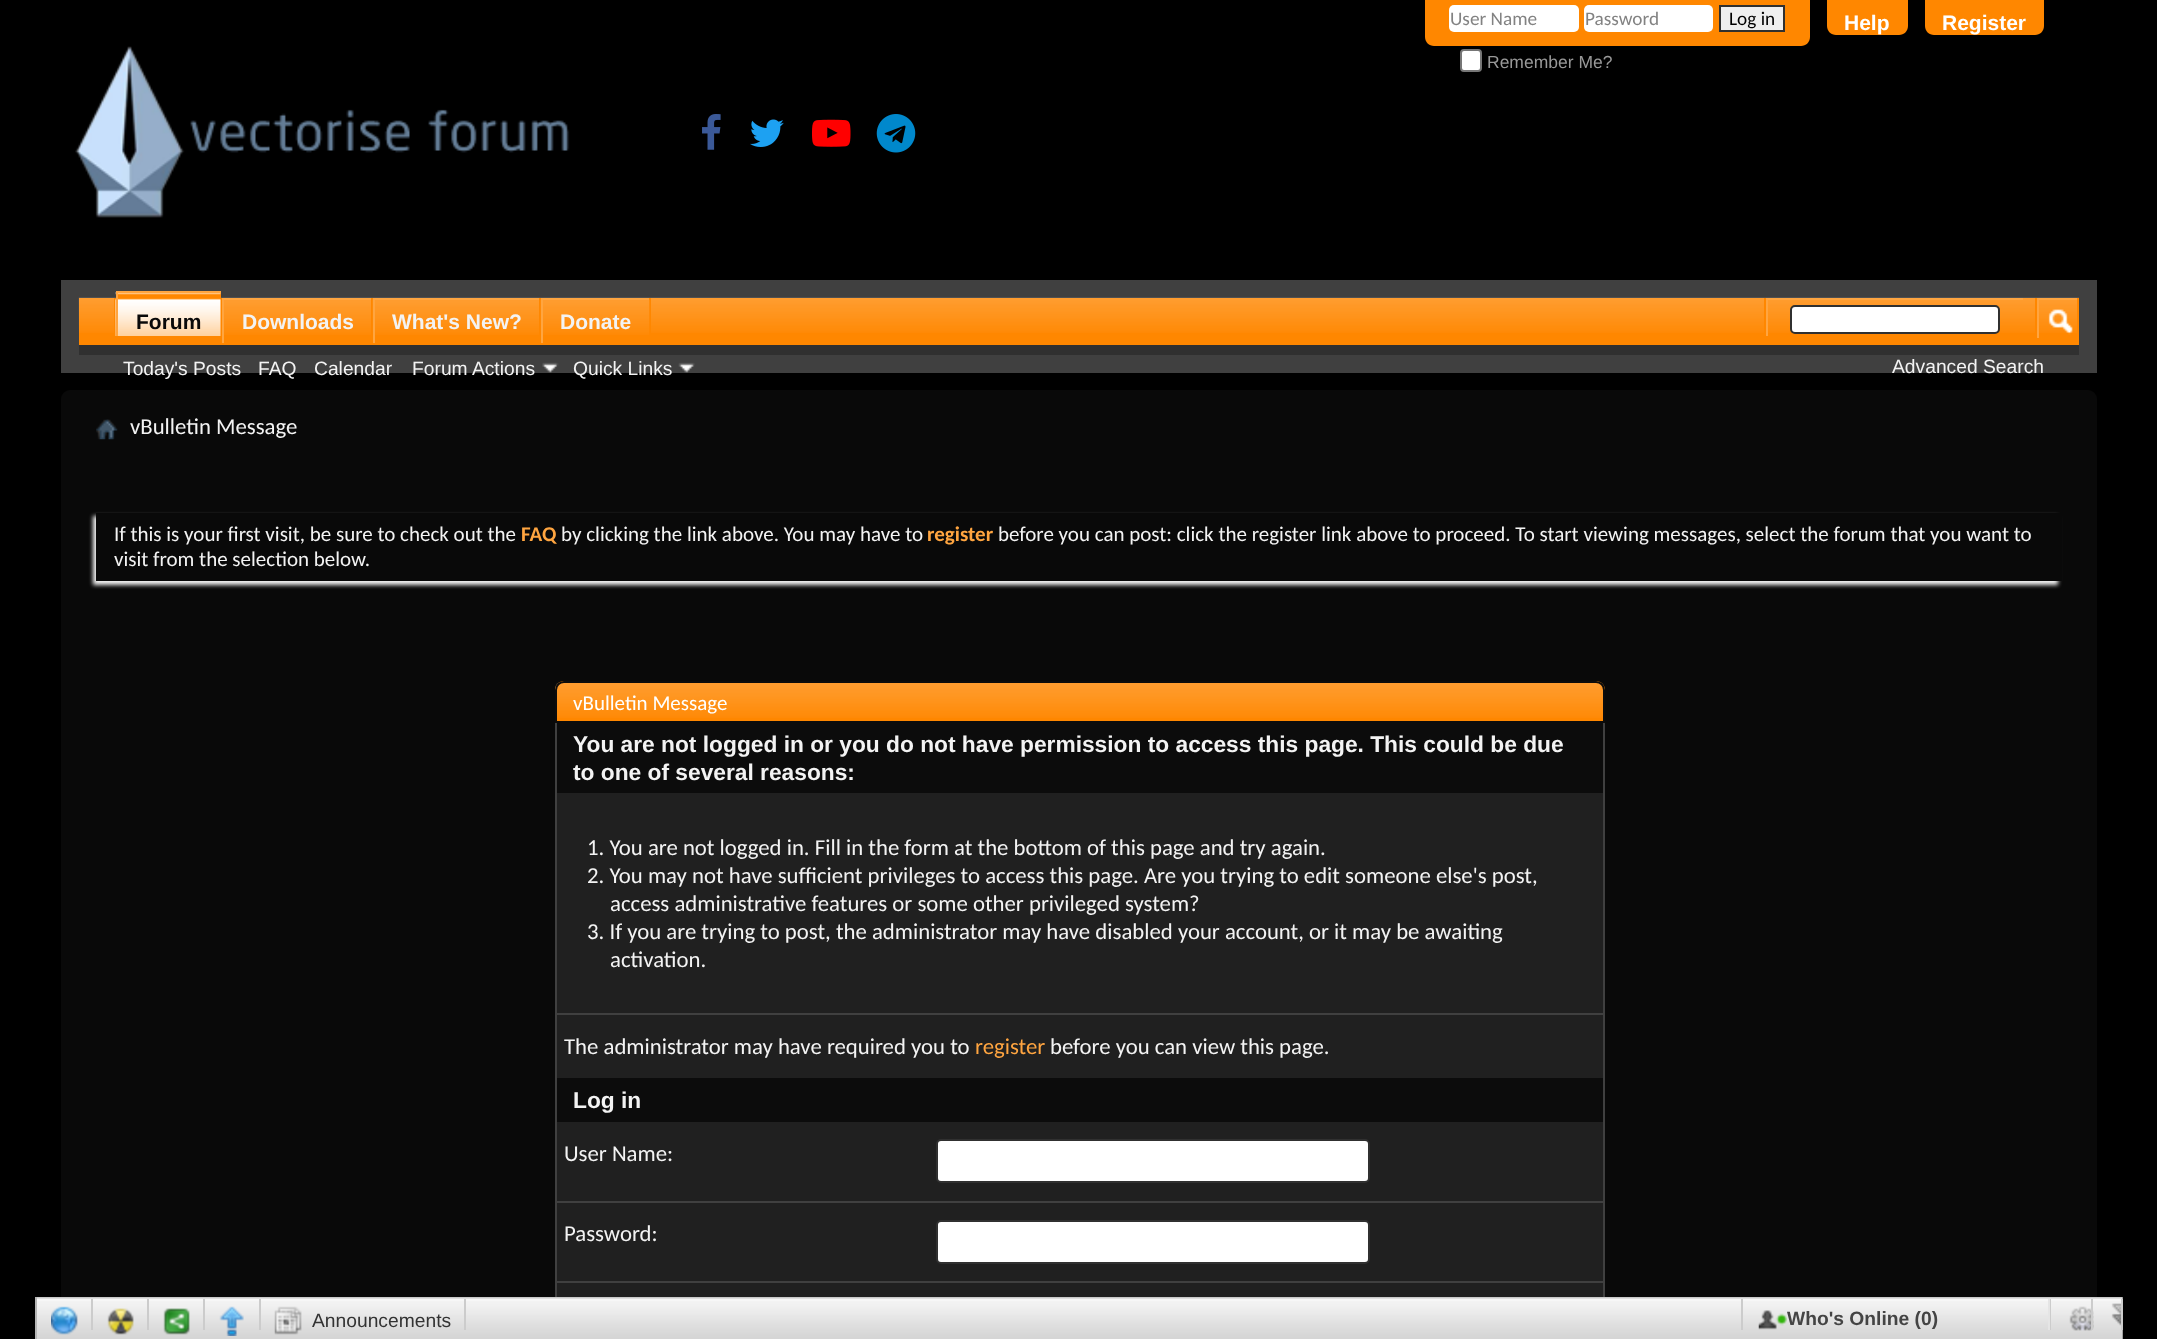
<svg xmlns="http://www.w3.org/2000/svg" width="2157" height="1339">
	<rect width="100%" height="100%" fill="#000000" />
	<path d="M1425 0H1810V37C1810 42 1806 46 1801 46H1434C1429 46 1425 42 1425 37Z" fill="#FF8700" />
	<rect x="1449" y="5" width="130" height="27" rx="5" fill="#FFFFFF" />
	<text x="1450" y="25" font-family="Carlito" font-size="19.25" fill="#828282">User Name</text>
	<rect x="1584" y="5" width="129" height="27" rx="5" fill="#FFFFFF" />
	<text x="1585" y="25" font-family="Carlito" font-size="19.25" fill="#828282">Password</text>
	<rect x="1720" y="6" width="64" height="25" fill="#EFEFEF" stroke="#303030" stroke-width="2" />
	<text x="1729" y="25" font-family="Carlito" font-size="19.25" fill="#000000">Log in</text>
	<rect x="1461" y="50" width="20" height="21" rx="3" fill="#FFFFFF" stroke="#767676" stroke-width="2" />
	<text x="1487" y="68" font-family="Liberation Sans" font-size="17.5" fill="#999999">Remember Me?</text>
	<path d="M1827 0H1908V26C1908 31 1904 35 1899 35H1836C1831 35 1827 31 1827 26Z" fill="#FF8700" />
	<text x="1844" y="30" font-family="Liberation Sans" font-size="21" font-weight="700" fill="#FFFFFF">Help</text>
	<path d="M1925 0H2044V26C2044 31 2040 35 2035 35H1934C1929 35 1925 31 1925 26Z" fill="#FF8700" />
	<text x="1942" y="30" font-family="Liberation Sans" font-size="21" font-weight="700" fill="#FFFFFF">Register</text>
	<image x="75" y="46" width="495" height="172" href="assets/img1.png" />
	<image x="702" y="114" width="19" height="36" href="assets/img2.png" />
	<image x="750" y="119" width="34" height="28" href="assets/img3.png" />
	<image x="812" y="119" width="39" height="28" href="assets/img4.png" />
	<image x="876" y="114" width="40" height="39" href="assets/img5.png" />
	<path d="M70 289H2088V364H70Z" fill="#303030" stroke="#404040" stroke-width="18" />
	<rect x="79" y="298" width="1998" height="45" fill="#FF8700" />
	<image x="78" y="297" width="2001" height="36" href="assets/img6.png" />
	<rect x="371" y="298" width="2" height="35" fill="#FF8700" />
	<rect x="224" y="300" width="147" height="33" fill="#FF8700" />
	<image x="224" y="300" width="147" height="35" href="assets/img7.png" />
	<rect x="222" y="298" width="149" height="2" fill="#FFA540" />
	<rect x="222" y="298" width="2" height="45" fill="#FFA540" />
	<text x="242" y="329" font-family="Liberation Sans" font-size="21" font-weight="700" fill="#F3F3F3">Downloads</text>
	<rect x="539" y="298" width="2" height="35" fill="#FF8700" />
	<rect x="375" y="300" width="164" height="33" fill="#FF8700" />
	<image x="372" y="299" width="167" height="36" href="assets/img8.png" />
	<rect x="373" y="298" width="166" height="2" fill="#FFA540" />
	<rect x="373" y="298" width="2" height="45" fill="#FFA540" />
	<text x="392" y="329" font-family="Liberation Sans" font-size="21" font-weight="700" fill="#F3F3F3">What's New?</text>
	<rect x="221" y="298" width="1" height="35" fill="#FF8700" />
	<rect x="114" y="298" width="2" height="35" fill="#FF8700" />
	<rect x="118" y="293" width="103" height="40" fill="#FF8700" />
	<image x="115" y="292" width="106" height="44" href="assets/img9.png" />
	<rect x="116" y="291" width="105" height="2" fill="#FFA540" />
	<rect x="116" y="291" width="2" height="45" fill="#FFA540" />
	<text x="136" y="329" font-family="Liberation Sans" font-size="21" font-weight="700" fill="#090909">Forum</text>
	<rect x="79" y="343" width="2000" height="2" fill="#FF8700" />
	<g font-family="Liberation Sans" font-size="19.25" fill="#F3F3F3">
		<text x="123" y="375">Today's Posts</text>
		<text x="258" y="375">FAQ</text>
		<text x="314" y="375">Calendar</text>
		<text x="412" y="375">Forum Actions</text>
	</g>
	<image x="542" y="362" width="17" height="11" href="assets/img10.png" />
	<text x="573" y="375" font-family="Liberation Sans" font-size="19.25" fill="#F3F3F3">Quick Links</text>
	<image x="678" y="362" width="17" height="11" href="assets/img11.png" />
	<rect x="649" y="298" width="2" height="35" fill="#FF8700" />
	<rect x="543" y="300" width="106" height="33" fill="#FF8700" />
	<image x="540" y="299" width="110" height="36" href="assets/img12.png" />
	<rect x="541" y="298" width="108" height="2" fill="#FFA540" />
	<rect x="541" y="298" width="2" height="45" fill="#FFA540" />
	<text x="560" y="329" font-family="Liberation Sans" font-size="21" font-weight="700" fill="#F3F3F3">Donate</text>
	<rect x="1764" y="298" width="2" height="35" fill="#FF8700" />
	<rect x="1766" y="298" width="257" height="2" fill="#FFA540" />
	<rect x="1766" y="298" width="2" height="38" fill="#FFA540" />
	<rect x="1791" y="306" width="208" height="27" rx="4" fill="#FFFFFF" stroke="#303030" stroke-width="2" />
	<rect x="2077" y="298" width="2" height="45" fill="#FF8700" />
	<rect x="2035" y="298" width="2" height="35" fill="#FF8700" />
	<rect x="2037" y="298" width="40" height="2" fill="#FFA540" />
	<rect x="2037" y="298" width="2" height="40" fill="#FFA540" />
	<image x="2048" y="309" width="25" height="26" href="assets/img13.png" />
	<text x="1892" y="373" font-family="Liberation Sans" font-size="19.25" fill="#F3F3F3">Advanced Search</text>
	<rect x="61" y="390" width="2036" height="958" rx="9" fill="#090909" />
	<image x="96" y="419" width="22" height="21" href="assets/img14.png" />
	<text x="130" y="434" font-family="Carlito" font-size="22.75" fill="#F3F3F3">vBulletin Message</text>
	<rect x="93" y="516" width="1965" height="69" fill="#F3F3F3" filter="blur(2px)" />
	<rect x="96" y="513" width="1966" height="68" fill="#090909" />
	<text x="114" y="541" font-family="Carlito" font-size="21" fill="#F3F3F3">If this is your first visit, be sure to check out the</text>
	<text x="521" y="541" font-family="Carlito" font-size="21" font-weight="700" fill="#FFA540">FAQ</text>
	<text x="561" y="541" font-family="Carlito" font-size="21" fill="#F3F3F3">by clicking the link above. You may have to</text>
	<text x="927" y="541" font-family="Carlito" font-size="21" font-weight="700" fill="#FFA540">register</text>
	<g font-family="Carlito" font-size="21" fill="#F3F3F3">
		<text x="998" y="541">before you can post: click the register link above to proceed. To start viewing messages, select the forum that you want to</text>
		<text x="114" y="566">visit from the selection below.</text>
	</g>
	<path d="M564 681H1596C1601 681 1605 685 1605 690V723H555V690C555 685 559 681 564 681Z" fill="#FF8700" />
	<image x="555" y="682" width="1050" height="36" href="assets/img15.png" />
	<path d="M564 682H1596C1600.5 682 1604 685.5 1604 690V722H556V690C556 685.5 559.5 682 564 682Z" fill="none" stroke="#0C0C0C" stroke-width="2" />
	<text x="573" y="710" font-family="Carlito" font-size="21" fill="#FFFFFF">vBulletin Message</text>
	<rect x="557" y="793" width="1046" height="504" fill="#202020" />
	<rect x="1603" y="723" width="2" height="574" fill="#404040" />
	<rect x="555" y="723" width="2" height="574" fill="#404040" />
	<rect x="557" y="723" width="1046" height="70" fill="#0C0C0C" />
	<g font-family="Liberation Sans" font-size="22.75" font-weight="700" fill="#F3F3F3">
		<text x="573" y="752">You are not logged in or you do not have permission to access this page. This could be due</text>
		<text x="573" y="780">to one of several reasons:</text>
	</g>
	<g font-family="Carlito" font-size="22.75" fill="#F3F3F3">
		<text x="587" y="855">1. You are not logged in. Fill in the form at the bottom of this page and try again.</text>
		<text x="587" y="883">2. You may not have sufficient privileges to access this page. Are you trying to edit someone else's post,</text>
		<text x="610" y="911">access administrative features or some other privileged system?</text>
		<text x="587" y="939">3. If you are trying to post, the administrator may have disabled your account, or it may be awaiting</text>
		<text x="610" y="967">activation.</text>
	</g>
	<rect x="557" y="1013" width="1046" height="2" fill="#404040" />
	<text x="564" y="1054" font-family="Carlito" font-size="22.75" fill="#F3F3F3">The administrator may have required you to</text>
	<text x="975" y="1054" font-family="Carlito" font-size="22.75" fill="#FFA540">register</text>
	<text x="1050" y="1054" font-family="Carlito" font-size="22.75" fill="#F3F3F3">before you can view this page.</text>
	<rect x="557" y="1078" width="1046" height="44" fill="#0C0C0C" />
	<text x="573" y="1108" font-family="Liberation Sans" font-size="22.75" font-weight="700" fill="#F3F3F3">Log in</text>
	<text x="564" y="1161" font-family="Carlito" font-size="22.75" fill="#F3F3F3">User Name:</text>
	<rect x="937" y="1140" width="432" height="42" rx="4" fill="#FFFFFF" stroke="#303030" stroke-width="2" />
	<rect x="557" y="1201" width="1046" height="2" fill="#404040" />
	<text x="564" y="1241" font-family="Carlito" font-size="22.75" fill="#F3F3F3">Password:</text>
	<rect x="937" y="1221" width="432" height="42" rx="4" fill="#FFFFFF" stroke="#303030" stroke-width="2" />
	<rect x="557" y="1281" width="1046" height="2" fill="#404040" />
	<image x="37" y="1297" width="2086" height="42" href="assets/img16.png" />
	<rect x="35" y="1297" width="2" height="42" fill="#B5B5B5" />
	<rect x="91" y="1299" width="2" height="31" fill="#CCCCCC" />
	<image x="51" y="1306" width="27" height="29" href="assets/img17.png" />
	<rect x="147" y="1299" width="2" height="31" fill="#CCCCCC" />
	<image x="107" y="1308" width="27" height="27" href="assets/img18.png" />
	<rect x="203" y="1299" width="2" height="31" fill="#CCCCCC" />
	<image x="163" y="1308" width="27" height="27" href="assets/img19.png" />
	<rect x="259" y="1299" width="2" height="31" fill="#CCCCCC" />
	<image x="219" y="1306" width="25" height="30" href="assets/img20.png" />
	<rect x="464" y="1299" width="2" height="31" fill="#CCCCCC" />
	<image x="274" y="1306" width="28" height="29" href="assets/img21.png" />
	<text x="312" y="1327" font-family="Liberation Sans" font-size="19.25" fill="#333333">Announcements</text>
	<rect x="2048" y="1299" width="2" height="31" fill="#E5E5E5" />
	<rect x="1741" y="1299" width="2" height="31" fill="#CCCCCC" />
	<image x="1758" y="1310" width="29" height="20" href="assets/img22.png" />
	<text x="1787" y="1325" font-family="Liberation Sans" font-size="19.25" font-weight="700" fill="#444444">Who's Online (0)</text>
	<image x="2069" y="1306" width="25" height="25" href="assets/img23.png" />
	<rect x="2091" y="1299" width="2" height="31" fill="#CCCCCC" />
	<rect x="2050" y="1299" width="1" height="31" fill="#CCCCCC" />
	<image x="2111" y="1303" width="10" height="23" href="assets/img24.png" />
	<rect x="2121" y="1299" width="2" height="31" fill="#CCCCCC" />
</svg>
